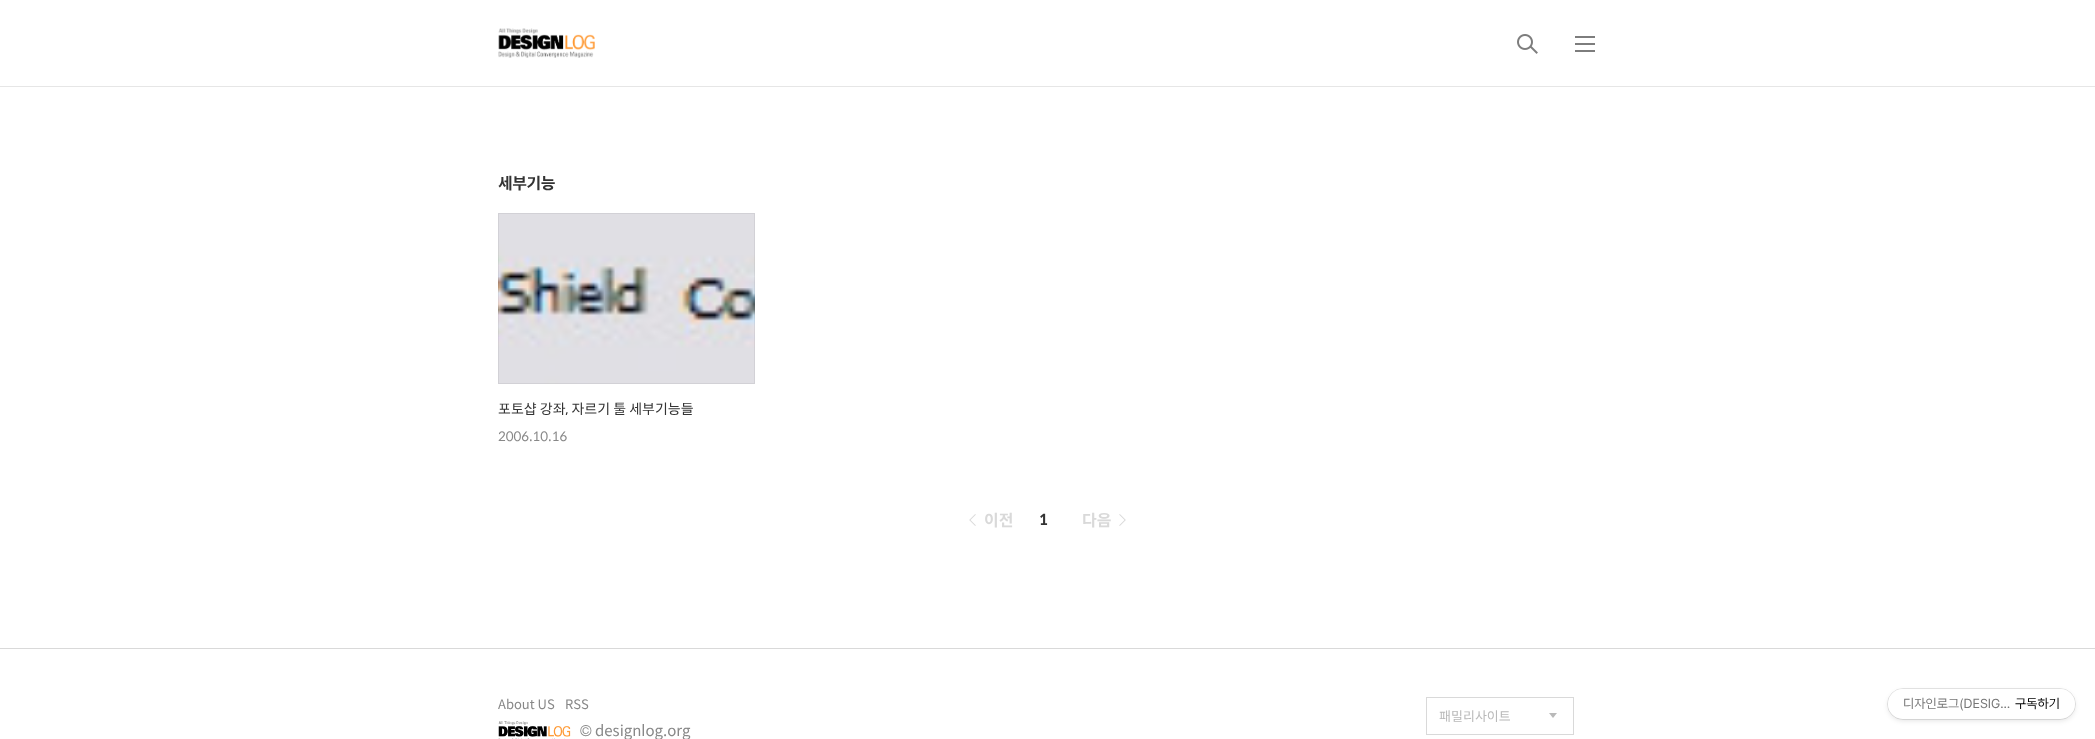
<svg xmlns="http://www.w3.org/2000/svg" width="2095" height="739">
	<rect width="100%" height="100%" fill="#FFFFFF" />
	<rect x="0" y="86" width="2095" height="1" fill="#E6E6E6" />
	<image x="498" y="28" width="97" height="30" href="assets/img1.png" />
	<image x="1517" y="34" width="21" height="20" href="assets/img2.png" />
	<image x="1575" y="36" width="20" height="16" href="assets/img3.png" />
	<text x="498" y="189" font-family="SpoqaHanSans" font-size="16" font-weight="700" letter-spacing="-0.5" fill="#333333">세부기능</text>
	<image x="498" y="213" width="257" height="171" href="assets/img4.png" />
	<rect x="498.5" y="213.5" width="256" height="170" fill="none" stroke="#000000" stroke-opacity="0.06" />
	<text x="498" y="414" font-family="SpoqaHanSans" font-size="14" fill="#333333">포토샵 강좌, 자르기 툴 세부기능들</text>
	<text x="498" y="441" font-family="SpoqaHanSans" font-size="13" fill="#888888">2006.10.16</text>
	<image x="969" y="514" width="7" height="12" href="assets/img5.png" />
	<text x="984" y="526" font-family="SpoqaHanSans" font-size="16" font-weight="700" fill="#D9D9D9">이전</text>
	<text x="1039" y="525" font-family="SpoqaHanSans" font-size="15" font-weight="700" fill="#333333">1</text>
	<text x="1082" y="526" font-family="SpoqaHanSans" font-size="16" font-weight="700" fill="#D9D9D9">다음</text>
	<image x="1119" y="514" width="7" height="12" href="assets/img6.png" />
	<rect x="0" y="648" width="2095" height="1" fill="#D9D9D9" />
	<g font-family="SpoqaHanSans" font-size="13" fill="#888888">
		<text x="498" y="709">About US</text>
		<text x="565" y="709">RSS</text>
	</g>
	<image x="498" y="721" width="73" height="18" href="assets/img7.png" />
	<text x="580" y="736" font-family="Dotum" font-size="15" fill="#888888">©</text>
	<text x="595" y="736" font-family="SpoqaHanSans" font-size="15" fill="#888888">designlog.org</text>
	<rect x="1426.5" y="697.5" width="147" height="37" fill="none" stroke="#D9D9D9" />
	<text x="1439" y="721" font-family="SpoqaHanSans" font-size="13" fill="#B9B9B9">패밀리사이트</text>
	<path d="M1549 713H1557L1553 718Z" fill="#B9B9B9" />
	<rect x="1888" y="691" width="187" height="30" rx="15" fill="#000000" fill-opacity="0.1" filter="blur(2.5px)" />
	<rect x="1887.5" y="688.5" width="188" height="31" rx="15.5" fill="none" stroke="#000000" stroke-opacity="0.1" />
	<rect x="1888" y="689" width="187" height="30" rx="15" fill="#FFFFFF" />
	<text x="1903" y="708" font-family="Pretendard" font-size="13" fill="#777777">디자인로그(DESIG…</text>
	<text x="2015" y="708" font-family="Pretendard" font-size="13" fill="#000000">구독하기</text>
</svg>
